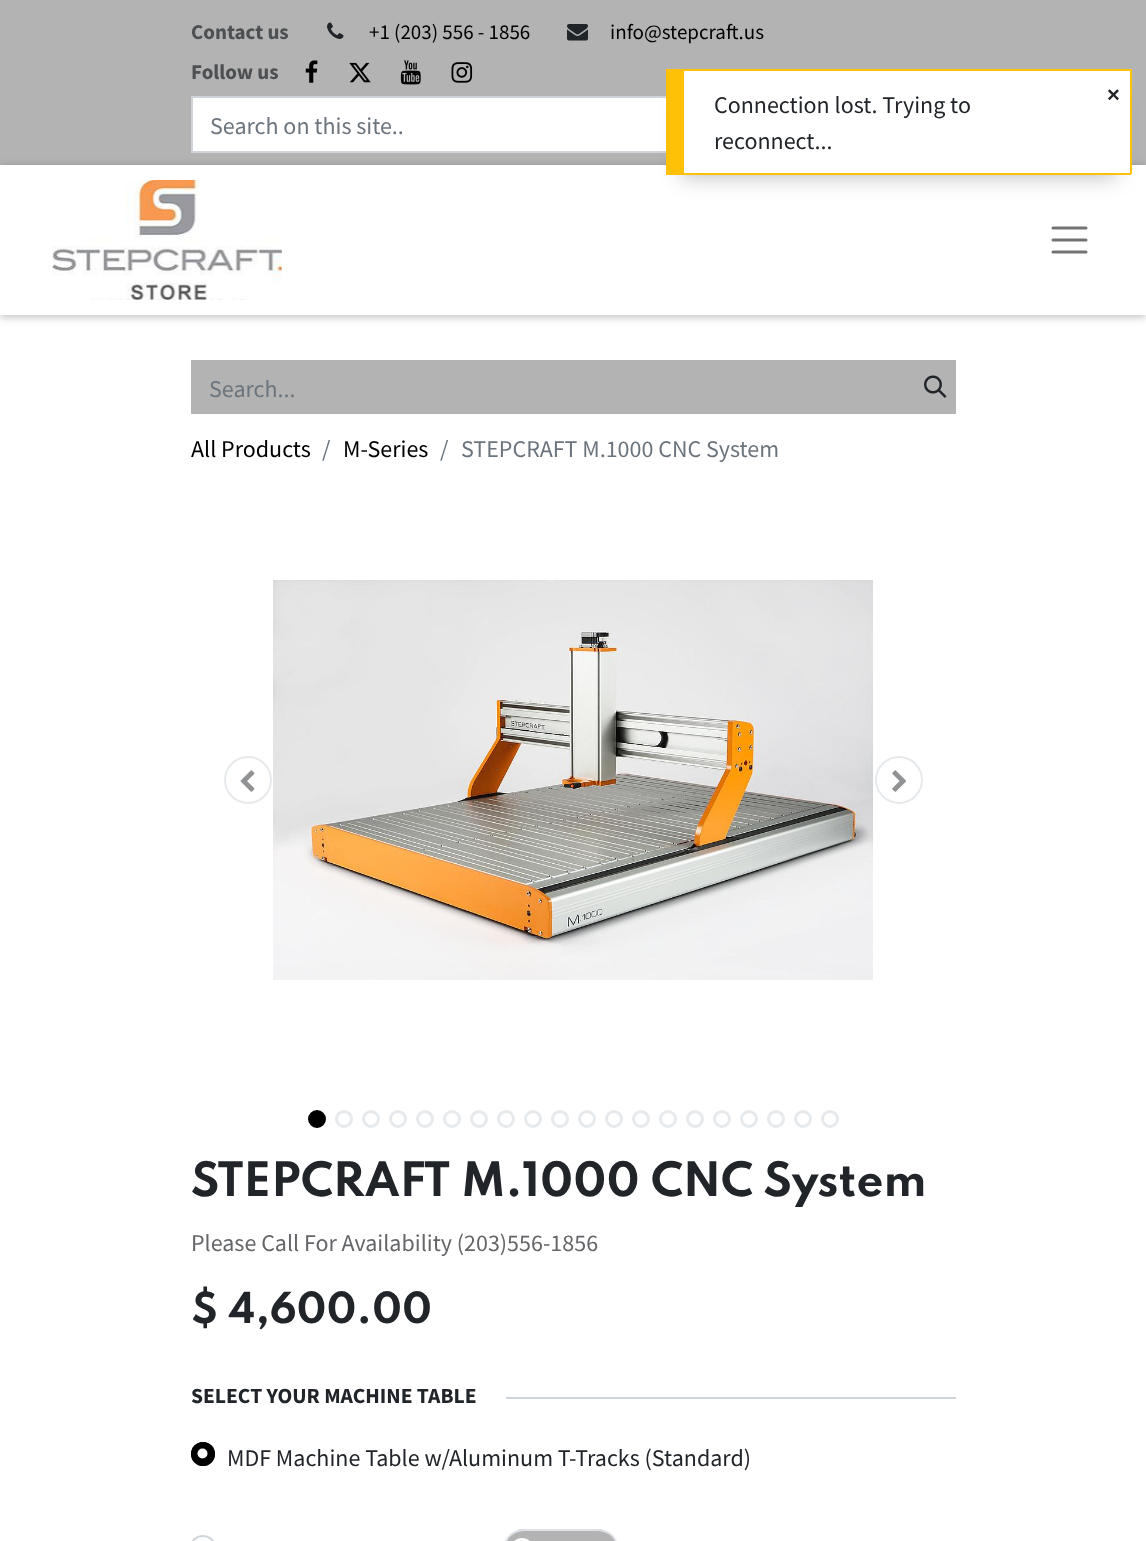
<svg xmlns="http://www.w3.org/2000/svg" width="1146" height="1541">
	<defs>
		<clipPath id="clip1"><path d="M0 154H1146V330H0ZM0 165H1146V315H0Z" clip-rule="evenodd" /></clipPath>
	</defs>
	<rect width="100%" height="100%" fill="#FFFFFF" />
	<rect x="0" y="0" width="1146" height="165" fill="#B3B3B3" />
	<text x="191" y="39" font-family="Source Sans Pro" font-size="21" font-weight="700" fill="#4D5052">Contact us</text>
	<image x="327" y="22" width="17" height="17" href="assets/img1.png" />
	<text x="369" y="39" font-family="Source Sans Pro" font-size="21" fill="#000000">+1 (203) 556 - 1856</text>
	<image x="567" y="24" width="21" height="17" href="assets/img2.png" />
	<text x="610" y="39" font-family="Source Sans Pro" font-size="21" fill="#000000">info@stepcraft.us</text>
	<text x="191" y="79" font-family="Source Sans Pro" font-size="21" font-weight="700" fill="#4D5052">Follow us</text>
	<image x="305" y="60" width="13" height="23" href="assets/img3.png" />
	<image x="349" y="62" width="22" height="21" href="assets/img4.png" />
	<image x="400" y="60" width="21" height="25" href="assets/img5.png" />
	<image x="451" y="62" width="22" height="21" href="assets/img6.png" />
	<rect x="193" y="98" width="473" height="53" fill="#FFFFFF" />
	<rect x="192" y="97" width="724" height="55" fill="none" stroke="#CED4DA" stroke-width="2" />
	<text x="210" y="134" font-family="Source Sans Pro" font-size="24" fill="#6C757D">Search on this site..</text>
	<g clip-path="url(#clip1)">
		<rect x="0" y="167" width="1146" height="150" fill="#000000" fill-opacity="0.25" filter="blur(4px)" />
	</g>
	<image x="52" y="180" width="230" height="120" href="assets/img7.png" />
	<path d="M1053 228H1086M1053 240H1086M1053 252H1086" fill="none" stroke="#737373" stroke-width="3" stroke-linecap="round" />
	<rect x="191" y="360" width="765" height="54" fill="#B3B3B3" />
	<text x="209" y="397" font-family="Source Sans Pro" font-size="24" fill="#6C757D">Search...</text>
	<image x="924" y="375" width="23" height="23" href="assets/img8.png" />
	<text x="191" y="457" font-family="Source Sans Pro" font-size="24" fill="#000000">All Products</text>
	<text x="322" y="457" font-family="Source Sans Pro" font-size="24" fill="#6C757D">/</text>
	<text x="343" y="457" font-family="Source Sans Pro" font-size="24" fill="#000000">M-Series</text>
	<g font-family="Source Sans Pro" font-size="24" fill="#6C757D">
		<text x="440" y="457">/</text>
		<text x="461" y="457">STEPCRAFT M.1000 CNC System</text>
	</g>
	<circle cx="248" cy="780" r="23" fill="none" stroke="#E7EAED" stroke-width="2" />
	<image x="240" y="770" width="15" height="22" href="assets/img9.png" />
	<image x="273" y="580" width="600" height="400" href="assets/img10.png" />
	<circle cx="899" cy="780" r="23" fill="none" stroke="#E7EAED" stroke-width="2" />
	<image x="892" y="770" width="14" height="22" href="assets/img11.png" />
	<circle cx="317" cy="1119" r="7.5" fill="#000000" stroke="#000000" stroke-width="3" />
	<circle cx="344" cy="1119" r="7.5" fill="none" stroke="#E7EAED" stroke-width="3" />
	<circle cx="371" cy="1119" r="7.5" fill="none" stroke="#E7EAED" stroke-width="3" />
	<circle cx="398" cy="1119" r="7.5" fill="none" stroke="#E7EAED" stroke-width="3" />
	<circle cx="425" cy="1119" r="7.5" fill="none" stroke="#E7EAED" stroke-width="3" />
	<circle cx="452" cy="1119" r="7.5" fill="none" stroke="#E7EAED" stroke-width="3" />
	<circle cx="479" cy="1119" r="7.5" fill="none" stroke="#E7EAED" stroke-width="3" />
	<circle cx="506" cy="1119" r="7.5" fill="none" stroke="#E7EAED" stroke-width="3" />
	<circle cx="533" cy="1119" r="7.5" fill="none" stroke="#E7EAED" stroke-width="3" />
	<circle cx="560" cy="1119" r="7.5" fill="none" stroke="#E7EAED" stroke-width="3" />
	<circle cx="587" cy="1119" r="7.5" fill="none" stroke="#E7EAED" stroke-width="3" />
	<circle cx="614" cy="1119" r="7.5" fill="none" stroke="#E7EAED" stroke-width="3" />
	<circle cx="641" cy="1119" r="7.5" fill="none" stroke="#E7EAED" stroke-width="3" />
	<circle cx="668" cy="1119" r="7.5" fill="none" stroke="#E7EAED" stroke-width="3" />
	<circle cx="695" cy="1119" r="7.5" fill="none" stroke="#E7EAED" stroke-width="3" />
	<circle cx="722" cy="1119" r="7.5" fill="none" stroke="#E7EAED" stroke-width="3" />
	<circle cx="749" cy="1119" r="7.5" fill="none" stroke="#E7EAED" stroke-width="3" />
	<circle cx="776" cy="1119" r="7.5" fill="none" stroke="#E7EAED" stroke-width="3" />
	<circle cx="803" cy="1119" r="7.5" fill="none" stroke="#E7EAED" stroke-width="3" />
	<circle cx="830" cy="1119" r="7.5" fill="none" stroke="#E7EAED" stroke-width="3" />
	<text x="191" y="1196" font-family="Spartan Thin" font-size="42" font-weight="700" fill="#212529">STEPCRAFT M.1000 CNC System</text>
	<text x="191" y="1251" font-family="Source Sans Pro" font-size="24" fill="#646669">Please Call For Availability (203)556-1856</text>
	<text x="191" y="1323" font-family="Spartan Thin" font-size="38" font-weight="700" fill="#212529">$ 4,600.00</text>
	<text x="191" y="1403" font-family="Source Sans Pro" font-size="21.6" font-weight="700" fill="#212529">SELECT YOUR MACHINE TABLE</text>
	<rect x="506" y="1397" width="450" height="2" fill="#CED4DA" />
	<circle cx="203" cy="1454" r="12" fill="#000000" />
	<circle cx="202.5" cy="1453.5" r="5" fill="#FFFFFF" />
	<circle cx="203" cy="1454" r="11" fill="none" stroke="#000000" stroke-width="2" />
	<text x="227" y="1466" font-family="Source Sans Pro" font-size="24" fill="#212529">MDF Machine Table w/Aluminum T-Tracks (Standard)</text>
	<rect x="192" y="1536" width="22" height="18" rx="11" fill="none" stroke="#CED4DA" stroke-width="2" />
	<path d="M525 1529H597C608.5 1529 618 1538.5 618 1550V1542H504V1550C504 1538.5 513.5 1529 525 1529Z" fill="#B3B3B3" />
	<rect x="505" y="1530" width="112" height="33" rx="20" fill="none" stroke="#DEE2E6" stroke-width="2" />
	<path d="M522 1538C528.5 1538 534 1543.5 534 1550V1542H510V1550C510 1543.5 515.5 1538 522 1538Z" fill="#FFFFFF" />
	<rect x="681" y="102" width="435" height="75" fill="#000000" fill-opacity="0.25" filter="blur(10.5px)" />
	<rect x="684" y="71" width="446" height="102" fill="#FFFFFF" />
	<rect x="684" y="69" width="447" height="2" fill="#FFC107" />
	<rect x="1130" y="69" width="2" height="105" fill="#FFC107" />
	<rect x="666" y="173" width="465" height="2" fill="#FFC107" />
	<rect x="666" y="69" width="18" height="104" fill="#FFC107" />
	<g font-family="Source Sans Pro" font-size="24" fill="#212529">
		<text x="714" y="113">Connection lost. Trying to</text>
		<text x="714" y="149">reconnect...</text>
	</g>
	<text x="1107" y="102" font-family="Liberation Sans" font-size="22" font-weight="700" fill="#212529">×</text>
</svg>
